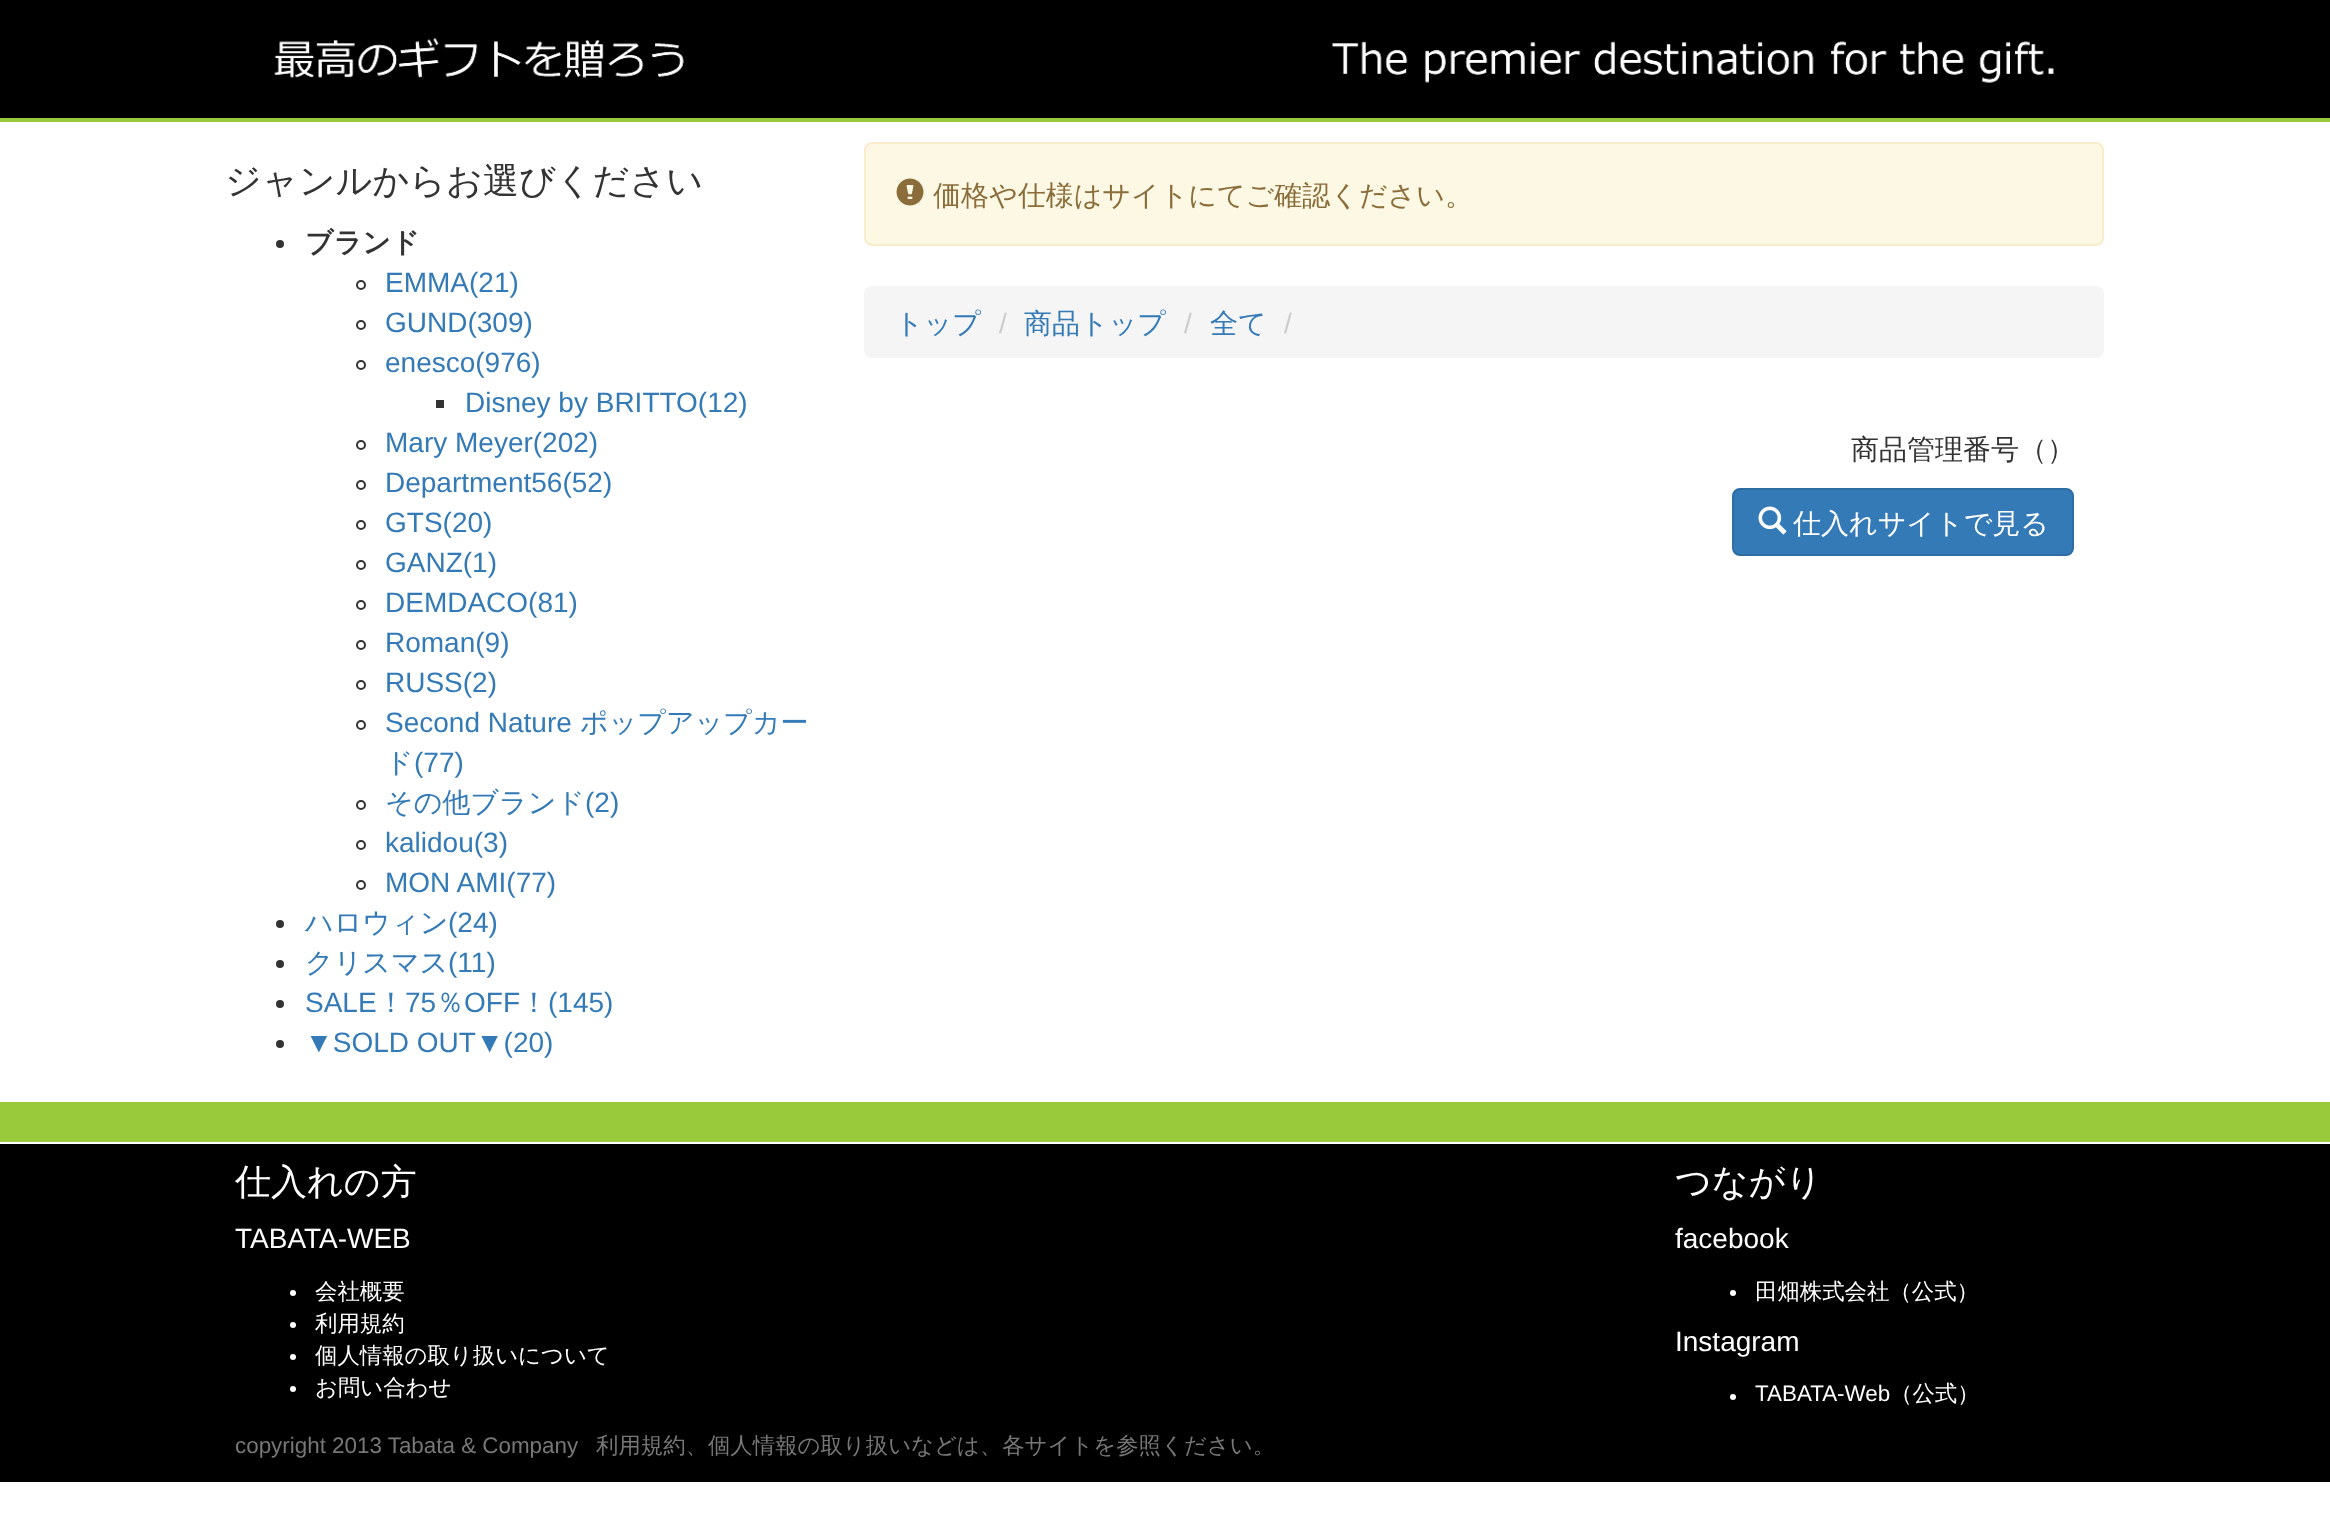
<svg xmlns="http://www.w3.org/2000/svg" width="2330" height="1526">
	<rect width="100%" height="100%" fill="#FFFFFF" />
	<rect x="0" y="0" width="2330" height="118" fill="#000000" />
	<rect x="0" y="118" width="2330" height="4" fill="#99CA3C" />
	<image x="274" y="38" width="1780" height="45" href="assets/img1.png" />
	<text x="225" y="193" font-family="WenQuanYi Zen Hei" font-size="36" font-weight="500" fill="#333333">ジャンルからお選びください</text>
	<circle cx="280" cy="244" r="4" fill="#333333" />
	<text x="305" y="252" font-family="WenQuanYi Zen Hei" font-size="28" font-weight="700" fill="#333333">ブランド</text>
	<circle cx="361" cy="285" r="4" fill="none" stroke="#333333" stroke-width="2" />
	<text x="385" y="292" font-family="Liberation Sans" font-size="28" fill="#337AB7">EMMA(21)</text>
	<circle cx="361" cy="325" r="4" fill="none" stroke="#333333" stroke-width="2" />
	<text x="385" y="332" font-family="Liberation Sans" font-size="28" fill="#337AB7">GUND(309)</text>
	<circle cx="361" cy="365" r="4" fill="none" stroke="#333333" stroke-width="2" />
	<text x="385" y="372" font-family="Liberation Sans" font-size="28" fill="#337AB7">enesco(976)</text>
	<rect x="436" y="400" width="8" height="8" fill="#333333" />
	<text x="465" y="412" font-family="Liberation Sans" font-size="28" fill="#337AB7">Disney by BRITTO(12)</text>
	<circle cx="361" cy="445" r="4" fill="none" stroke="#333333" stroke-width="2" />
	<text x="385" y="452" font-family="Liberation Sans" font-size="28" fill="#337AB7">Mary Meyer(202)</text>
	<circle cx="361" cy="485" r="4" fill="none" stroke="#333333" stroke-width="2" />
	<text x="385" y="492" font-family="Liberation Sans" font-size="28" fill="#337AB7">Department56(52)</text>
	<circle cx="361" cy="525" r="4" fill="none" stroke="#333333" stroke-width="2" />
	<text x="385" y="532" font-family="Liberation Sans" font-size="28" fill="#337AB7">GTS(20)</text>
	<circle cx="361" cy="565" r="4" fill="none" stroke="#333333" stroke-width="2" />
	<text x="385" y="572" font-family="Liberation Sans" font-size="28" fill="#337AB7">GANZ(1)</text>
	<circle cx="361" cy="605" r="4" fill="none" stroke="#333333" stroke-width="2" />
	<text x="385" y="612" font-family="Liberation Sans" font-size="28" fill="#337AB7">DEMDACO(81)</text>
	<circle cx="361" cy="645" r="4" fill="none" stroke="#333333" stroke-width="2" />
	<text x="385" y="652" font-family="Liberation Sans" font-size="28" fill="#337AB7">Roman(9)</text>
	<circle cx="361" cy="685" r="4" fill="none" stroke="#333333" stroke-width="2" />
	<text x="385" y="692" font-family="Liberation Sans" font-size="28" fill="#337AB7">RUSS(2)</text>
	<circle cx="361" cy="725" r="4" fill="none" stroke="#333333" stroke-width="2" />
	<text x="385" y="732" font-family="Liberation Sans" font-size="28" fill="#337AB7">Second Nature</text>
	<g font-family="WenQuanYi Zen Hei" font-size="28" font-weight="500" fill="#337AB7">
		<text x="580" y="732">ポップアップカー</text>
		<text x="385" y="772">ド</text>
	</g>
	<text x="414" y="772" font-family="Liberation Sans" font-size="28" fill="#337AB7">(77)</text>
	<circle cx="361" cy="805" r="4" fill="none" stroke="#333333" stroke-width="2" />
	<text x="385" y="812" font-family="WenQuanYi Zen Hei" font-size="28" font-weight="500" fill="#337AB7">その他ブランド</text>
	<text x="585" y="812" font-family="Liberation Sans" font-size="28" fill="#337AB7">(2)</text>
	<circle cx="361" cy="845" r="4" fill="none" stroke="#333333" stroke-width="2" />
	<text x="385" y="852" font-family="Liberation Sans" font-size="28" fill="#337AB7">kalidou(3)</text>
	<circle cx="361" cy="885" r="4" fill="none" stroke="#333333" stroke-width="2" />
	<text x="385" y="892" font-family="Liberation Sans" font-size="28" fill="#337AB7">MON AMI(77)</text>
	<circle cx="280" cy="924" r="4" fill="#333333" />
	<text x="305" y="932" font-family="WenQuanYi Zen Hei" font-size="28" font-weight="500" fill="#337AB7">ハロウィン</text>
	<text x="448" y="932" font-family="Liberation Sans" font-size="28" fill="#337AB7">(24)</text>
	<circle cx="280" cy="964" r="4" fill="#333333" />
	<text x="305" y="972" font-family="WenQuanYi Zen Hei" font-size="28" font-weight="500" fill="#337AB7">クリスマス</text>
	<text x="448" y="972" font-family="Liberation Sans" font-size="28" fill="#337AB7">(11)</text>
	<circle cx="280" cy="1004" r="4" fill="#333333" />
	<text x="305" y="1012" font-family="Liberation Sans" font-size="28" fill="#337AB7">SALE</text>
	<text x="377" y="1012" font-family="WenQuanYi Zen Hei" font-size="28" font-weight="500" fill="#337AB7">！</text>
	<text x="405" y="1012" font-family="Liberation Sans" font-size="28" fill="#337AB7">75</text>
	<text x="436" y="1012" font-family="WenQuanYi Zen Hei" font-size="28" font-weight="500" fill="#337AB7">％</text>
	<text x="464" y="1012" font-family="Liberation Sans" font-size="28" fill="#337AB7">OFF</text>
	<text x="520" y="1012" font-family="WenQuanYi Zen Hei" font-size="28" font-weight="500" fill="#337AB7">！</text>
	<text x="548" y="1012" font-family="Liberation Sans" font-size="28" fill="#337AB7">(145)</text>
	<circle cx="280" cy="1044" r="4" fill="#333333" />
	<text x="305" y="1052" font-family="Liberation Sans" font-size="28" fill="#337AB7">▼SOLD OUT▼(20)</text>
	<rect x="865" y="143" width="1238" height="102" rx="7" fill="#FCF8E3" stroke="#FAEBCC" stroke-width="2" />
	<image x="896" y="178" width="28" height="28" href="assets/img2.png" />
	<text x="933" y="205" font-family="WenQuanYi Zen Hei" font-size="28" font-weight="500" fill="#8A6D3B">価格や仕様はサイトにてご確認ください。</text>
	<rect x="864" y="286" width="1240" height="72" rx="8" fill="#F5F5F5" />
	<text x="895" y="333" font-family="WenQuanYi Zen Hei" font-size="28" font-weight="500" fill="#337AB7">トップ</text>
	<text x="999" y="333" font-family="Liberation Sans" font-size="28" fill="#CCCCCC">/</text>
	<text x="1024" y="333" font-family="WenQuanYi Zen Hei" font-size="28" font-weight="500" fill="#337AB7">商品トップ</text>
	<text x="1184" y="333" font-family="Liberation Sans" font-size="28" fill="#CCCCCC">/</text>
	<text x="1210" y="333" font-family="WenQuanYi Zen Hei" font-size="28" font-weight="500" fill="#337AB7">全て</text>
	<text x="1284" y="333" font-family="Liberation Sans" font-size="28" fill="#CCCCCC">/</text>
	<text x="1851" y="459" font-family="WenQuanYi Zen Hei" font-size="28" font-weight="500" fill="#333333">商品管理番号（）</text>
	<rect x="1733" y="489" width="340" height="66" rx="7" fill="#337AB7" stroke="#2E6DA4" stroke-width="2" />
	<image x="1758" y="506" width="29" height="29" href="assets/img3.png" />
	<text x="1793" y="533" font-family="WenQuanYi Zen Hei" font-size="28" font-weight="500" fill="#FFFFFF">仕入れサイトで見る</text>
	<rect x="0" y="1102" width="2330" height="40" fill="#99CA3C" />
	<rect x="0" y="1144" width="2330" height="338" fill="#000000" />
	<text x="235" y="1194" font-family="WenQuanYi Zen Hei" font-size="36" font-weight="500" fill="#FFFFFF">仕入れの方</text>
	<text x="235" y="1248" font-family="Liberation Sans" font-size="28" fill="#FFFFFF">TABATA-WEB</text>
	<circle cx="293" cy="1293" r="3" fill="#FFFFFF" />
	<text x="315" y="1299" font-family="WenQuanYi Zen Hei" font-size="22.4" font-weight="500" fill="#FFFFFF">会社概要</text>
	<circle cx="293" cy="1325" r="3" fill="#FFFFFF" />
	<text x="315" y="1331" font-family="WenQuanYi Zen Hei" font-size="22.4" font-weight="500" fill="#FFFFFF">利用規約</text>
	<circle cx="293" cy="1357" r="3" fill="#FFFFFF" />
	<text x="315" y="1363" font-family="WenQuanYi Zen Hei" font-size="22.4" font-weight="500" fill="#FFFFFF">個人情報の取り扱いについて</text>
	<circle cx="293" cy="1389" r="3" fill="#FFFFFF" />
	<text x="315" y="1395" font-family="WenQuanYi Zen Hei" font-size="22.4" font-weight="500" fill="#FFFFFF">お問い合わせ</text>
	<text x="1675" y="1194" font-family="WenQuanYi Zen Hei" font-size="36" font-weight="500" fill="#FFFFFF">つながり</text>
	<text x="1675" y="1248" font-family="Liberation Sans" font-size="28" fill="#FFFFFF">facebook</text>
	<circle cx="1733" cy="1293" r="3" fill="#FFFFFF" />
	<text x="1755" y="1299" font-family="WenQuanYi Zen Hei" font-size="22.4" font-weight="500" fill="#FFFFFF">田畑株式会社（公式）</text>
	<text x="1675" y="1351" font-family="Liberation Sans" font-size="28" fill="#FFFFFF">Instagram</text>
	<circle cx="1733" cy="1397" r="3" fill="#FFFFFF" />
	<text x="1755" y="1401" font-family="Liberation Sans" font-size="22.4" fill="#FFFFFF">TABATA-Web</text>
	<text x="1890" y="1401" font-family="WenQuanYi Zen Hei" font-size="22.4" font-weight="500" fill="#FFFFFF">（公式）</text>
	<text x="235" y="1453" font-family="Liberation Sans" font-size="22.4" fill="#777777">copyright 2013 Tabata &amp; Company</text>
	<text x="596" y="1453" font-family="WenQuanYi Zen Hei" font-size="22.4" font-weight="500" fill="#777777">利用規約、個人情報の取り扱いなどは、各サイトを参照ください。</text>
</svg>
